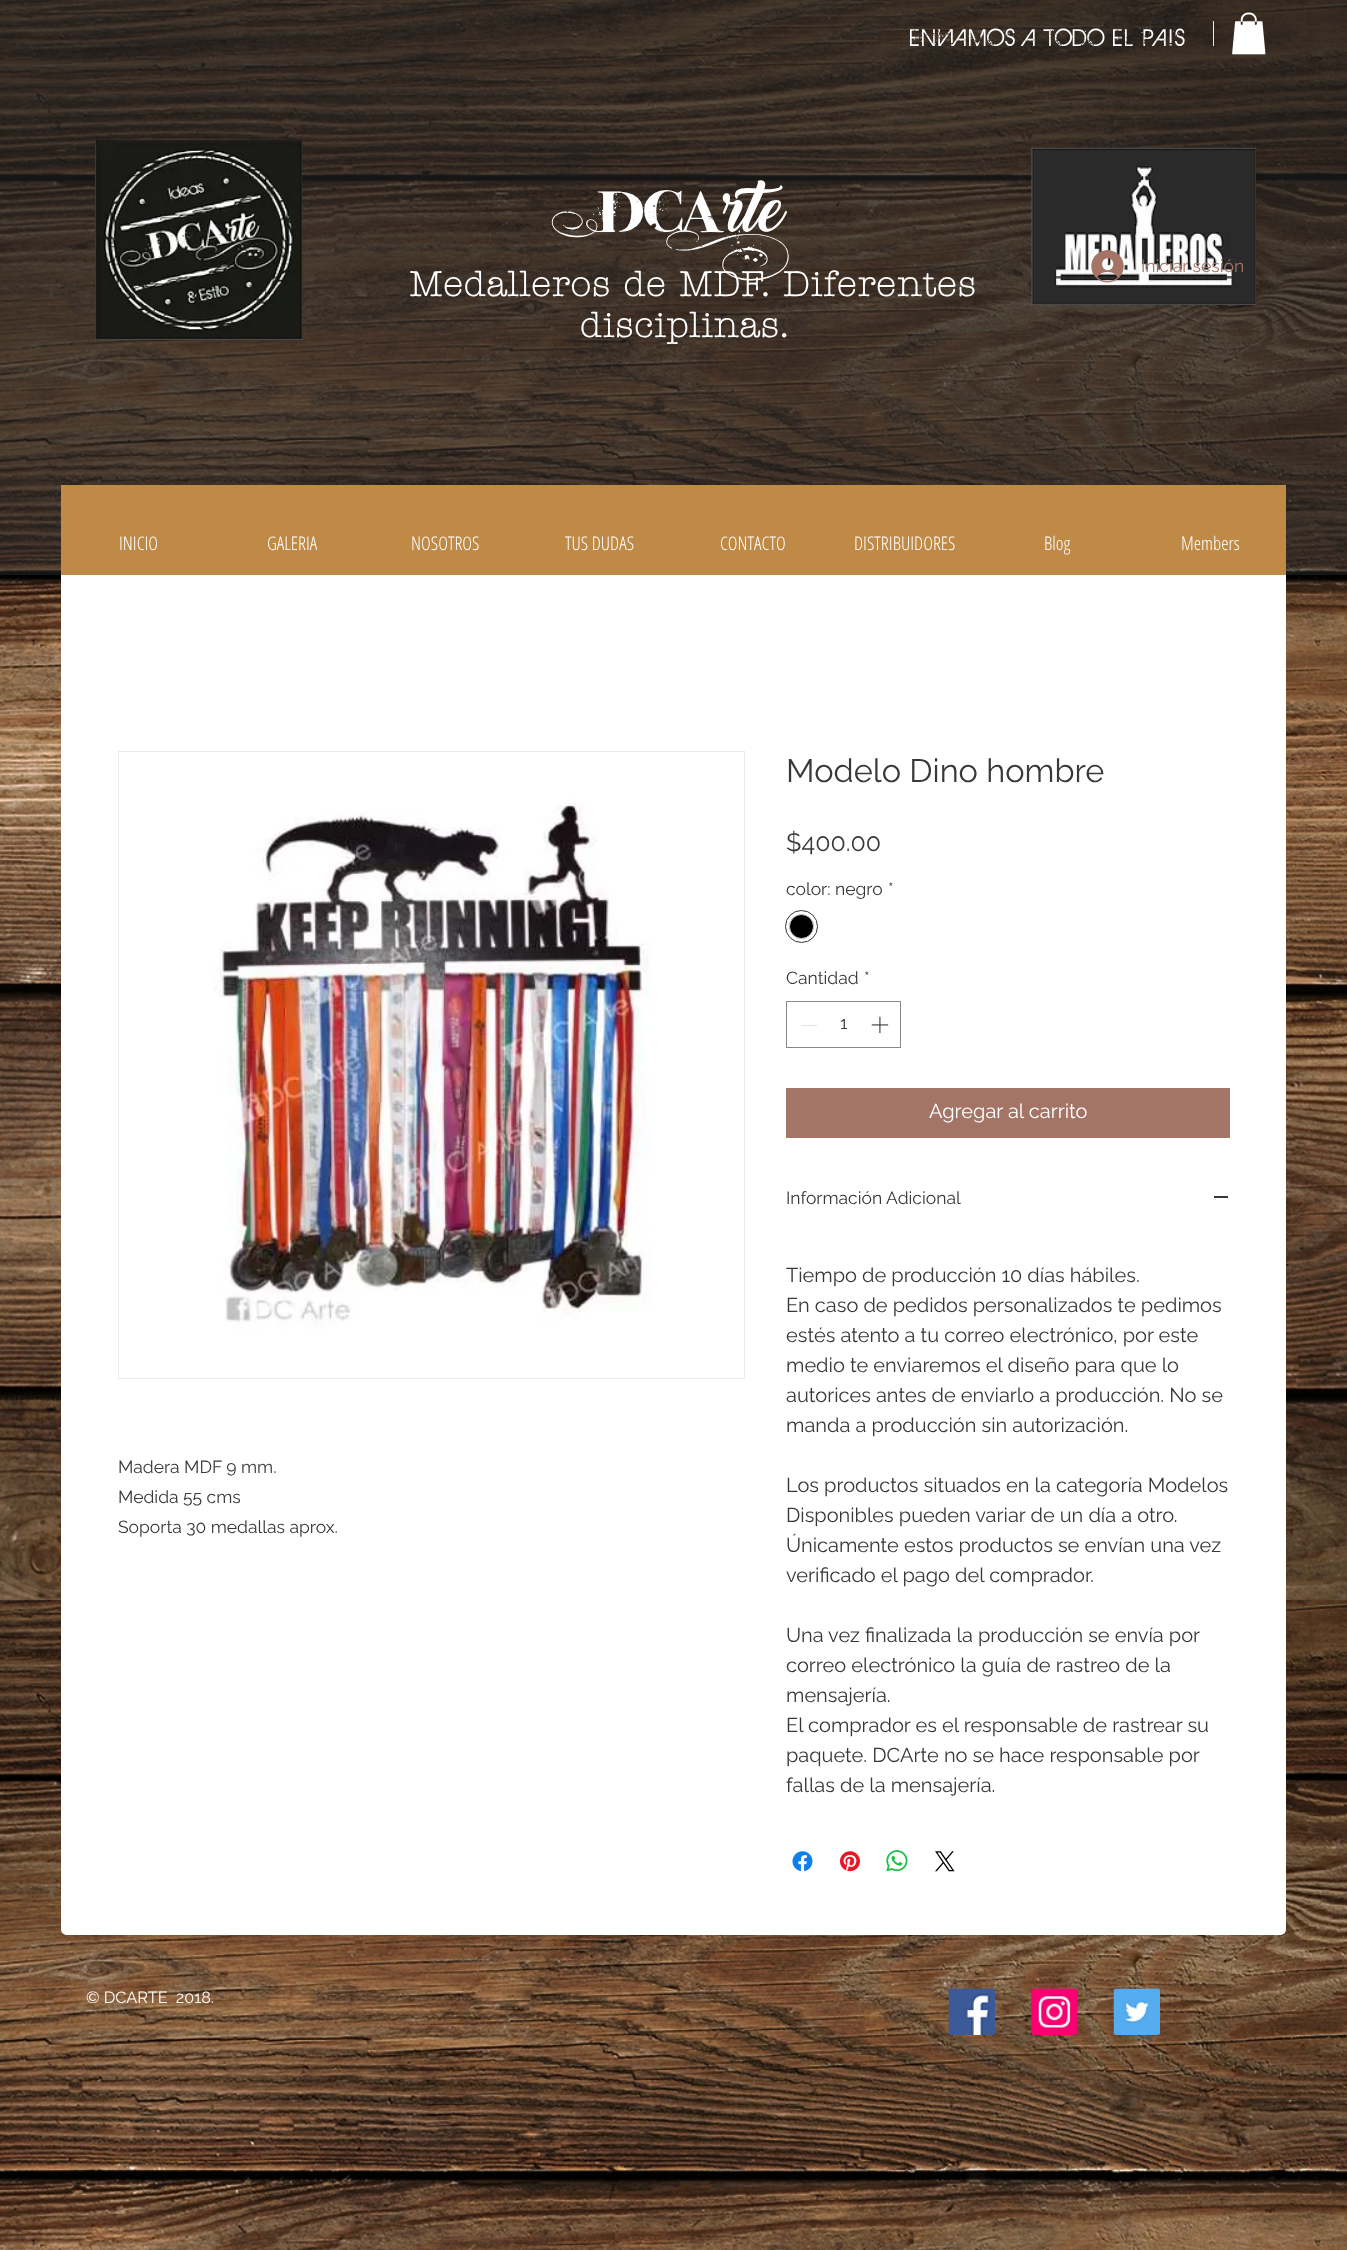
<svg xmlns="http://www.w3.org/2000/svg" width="1347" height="2250">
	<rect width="100%" height="100%" fill="#FFFFFF" />
	<image x="0" y="0" width="1347" height="2250" href="assets/img1.png" />
	<rect x="0" y="0" width="1347" height="575" fill="#232323" fill-opacity="0.6" />
	<text x="910" y="46" font-family="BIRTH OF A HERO" font-size="26.25" letter-spacing="2.6" fill="#FFFFFF">ENVIAMOS A TODO EL PAIS</text>
	<rect x="1213" y="21" width="1" height="25" fill="#E9E9E9" />
	<image x="1232" y="12" width="34" height="43" href="assets/img2.png" />
	<image x="95" y="140" width="208" height="200" href="assets/img3.png" />
	<text x="601" y="232" font-family="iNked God" font-size="64" fill="#FFFFFF">DCA</text>
	<text x="723" y="232" font-family="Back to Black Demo" font-size="64" font-weight="900" fill="#FFFFFF">rte</text>
	<g font-family="'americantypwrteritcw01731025'" font-size="35" font-weight="700" letter-spacing="1.4" fill="#FFFFFF">
		<text x="409" y="296">Medalleros de MDF. Diferentes</text>
		<text x="580" y="337">disciplinas.</text>
	</g>
	<image x="1031" y="147" width="225" height="158" href="assets/img4.png" />
	<image x="1091" y="250" width="33" height="33" href="assets/img5.png" />
	<text x="1141" y="272" font-family="Raleway" font-size="17.5" fill="#A47566">Iniciar sesión</text>
	<rect x="61" y="485" width="1225" height="90" fill="#BF8A45" />
	<g font-family="Open Sans Condensed" font-size="18.75" font-weight="300" fill="#FFFFFF">
		<text x="119" y="550">INICIO</text>
		<text x="267" y="550">GALERIA</text>
		<text x="411" y="550">NOSOTROS</text>
		<text x="565" y="550">TUS DUDAS</text>
		<text x="720" y="550">CONTACTO</text>
		<text x="854" y="550">DISTRIBUIDORES</text>
		<text x="1044" y="550">Blog</text>
		<text x="1181" y="550">Members</text>
	</g>
	<path d="M61 575H1286V1929C1286 1932.5 1283.5 1935 1280 1935H67C63.5 1935 61 1932.5 61 1929Z" fill="#FFFFFF" />
	<rect x="118.5" y="751.5" width="626" height="627" fill="none" stroke="#E9E9E9" />
	<image x="118" y="753" width="534" height="624" href="assets/img6.png" />
	<g font-family="Raleway" font-size="17.5" fill="#383838">
		<text x="118" y="1473">Madera MDF 9 mm.</text>
		<text x="118" y="1503">Medida 55 cms</text>
		<text x="118" y="1533">Soporta 30 medallas aprox.</text>
	</g>
	<text x="786" y="782" font-family="Raleway" font-size="32.5" fill="#383838">Modelo Dino hombre</text>
	<text x="786" y="851" font-family="Raleway" font-size="25" fill="#383838">$400.00</text>
	<g font-family="Raleway" font-size="17.5" fill="#383838">
		<text x="786" y="895">color: negro</text>
		<text x="888" y="895">*</text>
	</g>
	<circle cx="801.5" cy="926.5" r="16" fill="none" stroke="#383838" />
	<circle cx="801.5" cy="926.5" r="12" fill="#000000" stroke="#C9C9C9" />
	<g font-family="Raleway" font-size="17.5" fill="#383838">
		<text x="786" y="984">Cantidad</text>
		<text x="864" y="984">*</text>
	</g>
	<rect x="786.5" y="1001.5" width="114" height="46" fill="none" stroke="#888888" />
	<rect x="801" y="1025" width="16" height="1" fill="#E3E3E3" />
	<text x="840" y="1029" font-family="Raleway" font-size="17.5" fill="#383838">1</text>
	<image x="871" y="1016" width="18" height="18" href="assets/img7.png" />
	<rect x="786" y="1088" width="444" height="50" fill="#A47566" />
	<text x="929" y="1118" font-family="Raleway" font-size="20" fill="#FFFFFF">Agregar al carrito</text>
	<text x="786" y="1204" font-family="Raleway" font-size="17.5" fill="#383838">Información Adicional</text>
	<rect x="1214" y="1196" width="14" height="2" fill="#383838" />
	<g font-family="Raleway" font-size="20" fill="#383838">
		<text x="786" y="1282">Tiempo de producción 10 días hábiles.</text>
		<text x="786" y="1312">En caso de pedidos personalizados te pedimos</text>
		<text x="786" y="1342">estés atento a tu correo electrónico, por este</text>
		<text x="786" y="1372">medio te enviaremos el diseño para que lo</text>
		<text x="786" y="1402">autorices antes de enviarlo a producción. No se</text>
		<text x="786" y="1432">manda a producción sin autorización.</text>
		<text x="786" y="1492">Los productos situados en la categoría Modelos</text>
		<text x="786" y="1522">Disponibles pueden variar de un día a otro.</text>
		<text x="786" y="1552">Únicamente estos productos se envían una vez</text>
		<text x="786" y="1582">verificado el pago del comprador.</text>
		<text x="786" y="1642">Una vez finalizada la producción se envía por</text>
		<text x="786" y="1672">correo electrónico la guía de rastreo de la</text>
		<text x="786" y="1702">mensajería.</text>
		<text x="786" y="1732">El comprador es el responsable de rastrear su</text>
		<text x="786" y="1762">paquete. DCArte no se hace responsable por</text>
		<text x="786" y="1792">fallas de la mensajería.</text>
	</g>
	<image x="792" y="1851" width="21" height="21" href="assets/img8.png" />
	<image x="840" y="1851" width="20" height="21" href="assets/img9.png" />
	<image x="886" y="1850" width="22" height="22" href="assets/img10.png" />
	<image x="935" y="1851" width="20" height="21" href="assets/img11.png" />
	<text x="86" y="2003" font-family="Raleway" font-size="16.25" fill="#FFFFFF" xml:space="preserve">© DCARTE  2018.</text>
	<image x="948" y="1988" width="47" height="47" href="assets/img12.png" />
	<image x="1031" y="1988" width="47" height="47" href="assets/img13.png" />
	<image x="1113" y="1988" width="47" height="47" href="assets/img14.png" />
</svg>
